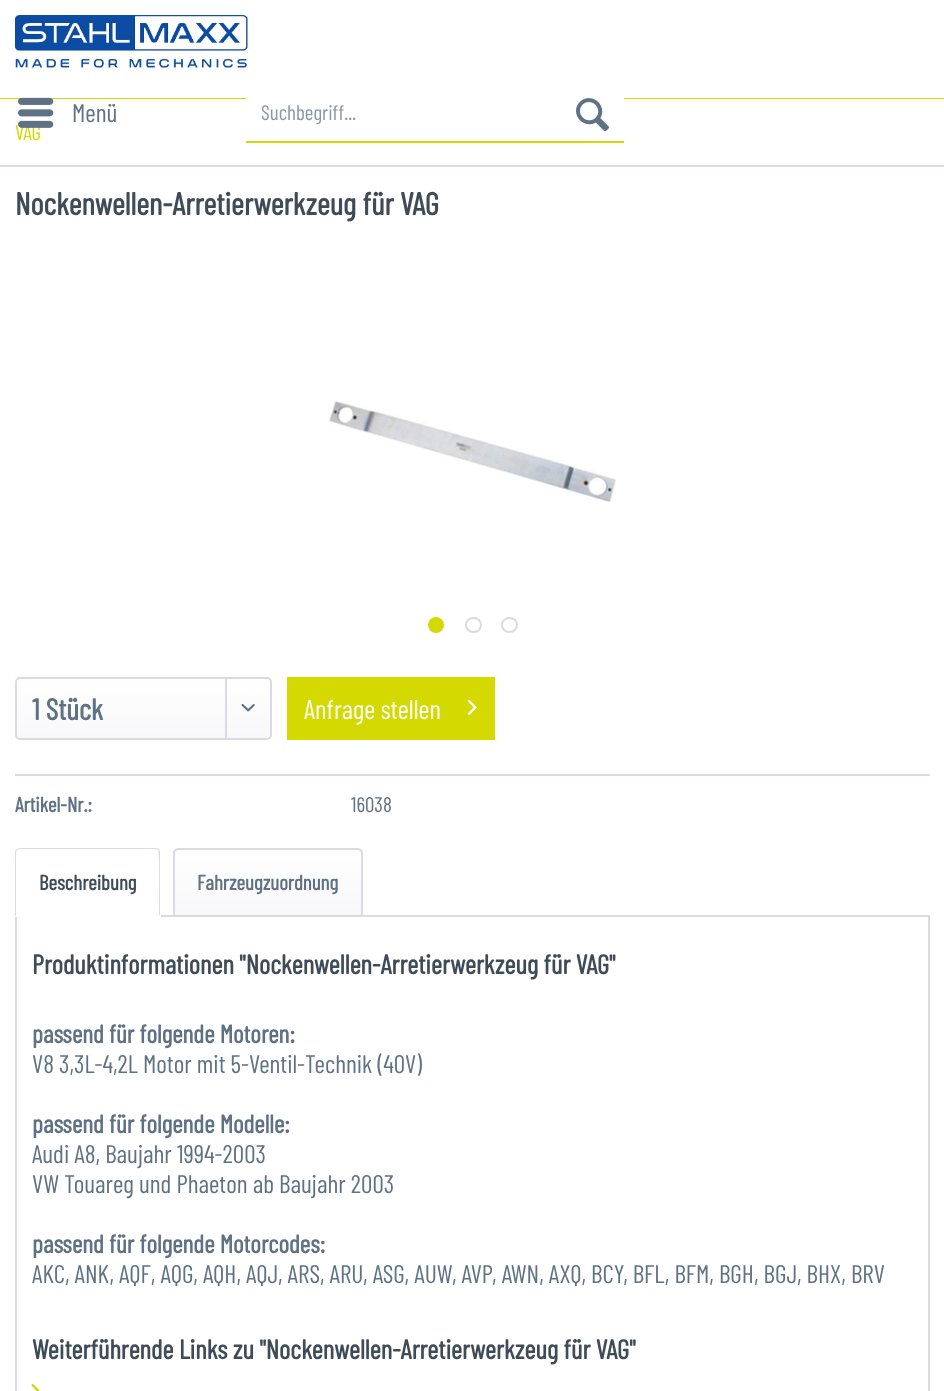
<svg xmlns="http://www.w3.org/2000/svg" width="944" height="1391">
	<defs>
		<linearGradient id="g1" gradientUnits="userSpaceOnUse" x1="143" y1="678" x2="143" y2="738"><stop offset="0" stop-color="#FFFFFF" /><stop offset="1" stop-color="#F8F8FA" /></linearGradient>
		<linearGradient id="g2" gradientUnits="userSpaceOnUse" x1="268" y1="849" x2="268" y2="915"><stop offset="0" stop-color="#FFFFFF" /><stop offset="1" stop-color="#F8F8FA" /></linearGradient>
	</defs>
	<rect width="100%" height="100%" fill="#FFFFFF" />
	<rect x="0" y="98" width="944" height="1" fill="#D4D901" />
	<image x="15" y="15" width="233" height="53" href="assets/img1.png" />
	<text x="15" y="140" font-family="Barlow Condensed" font-size="21" fill="#D4D901">VAG</text>
	<image x="18" y="97" width="36" height="31" href="assets/img2.png" />
	<text x="72" y="122" font-family="Barlow Condensed" font-size="25.5" fill="#5F7285">Menü</text>
	<rect x="246" y="98" width="378" height="1" fill="#FFFFFF" />
	<rect x="246" y="141" width="378" height="2" fill="#D4D901" />
	<text x="261" y="120" font-family="Barlow Condensed" font-size="21" fill="#8798A9">Suchbegriff...</text>
	<image x="576" y="98" width="33" height="33" href="assets/img3.png" />
	<rect x="0" y="165" width="944" height="2" fill="#DADAE5" />
	<text x="15" y="215" font-family="Barlow Condensed" font-size="31.5" font-weight="700" fill="#3F4C58">Nockenwellen-Arretierwerkzeug für VAG</text>
	<image x="329" y="401" width="287" height="101" href="assets/img4.png" />
	<circle cx="436" cy="625" r="7" fill="#D4D901" stroke="#D4D901" stroke-width="2" />
	<rect x="466" y="618" width="15" height="14" rx="7" fill="none" stroke="#DADAE5" stroke-width="2" />
	<rect x="502" y="618" width="15" height="14" rx="7" fill="none" stroke="#DADAE5" stroke-width="2" />
	<rect x="17" y="678" width="253" height="60" rx="3" fill="url(#g1)" />
	<rect x="16" y="678" width="255" height="61" rx="4" fill="none" stroke="#DADAE5" stroke-width="2" />
	<text x="32" y="720" font-family="Barlow Condensed" font-size="30" font-weight="700" fill="#5F7285">1 Stück</text>
	<rect x="225" y="678" width="2" height="60" fill="#DADAE5" />
	<image x="241" y="704" width="14" height="8" href="assets/img5.png" />
	<rect x="287" y="677" width="208" height="63" fill="#D4D901" />
	<text x="304" y="719" font-family="Barlow Condensed" font-size="27" fill="#FFFFFF">Anfrage stellen</text>
	<image x="468" y="700" width="9" height="15" href="assets/img6.png" />
	<rect x="15" y="774" width="915" height="2" fill="#DADAE5" />
	<text x="15" y="812" font-family="Barlow Condensed" font-size="21" font-weight="700" fill="#5F7285">Artikel-Nr.:</text>
	<text x="351" y="812" font-family="Barlow Condensed" font-size="21" fill="#5F7285">16038</text>
	<rect x="16" y="916" width="913" height="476" fill="none" stroke="#DADAE5" stroke-width="2" />
	<path d="M20 848H156C159 848 161 850 161 853V917H15V853C15 850 17 848 20 848Z" fill="#FFFFFF" />
	<path d="M20 848L17 849V850L20 849H156L158 850L159 849L156 848Z" fill="#DADAE5" />
	<path d="M160 916V852L159 849L158 850C160 851 159 908 159 915Z" fill="#DADAE5" />
	<path d="M160 916L159 915H16V916Z" fill="#FFFFFF" />
	<path d="M15 852V916H16V915V852L17 850V849C16 850 15 851 15 852Z" fill="#DADAE5" />
	<text x="39" y="890" font-family="Barlow Condensed" font-size="21" font-weight="700" fill="#3F4C58">Beschreibung</text>
	<path d="M177 849H359C360.5 849 362 850.5 362 852V915H174V852C174 850.5 175.5 849 177 849Z" fill="url(#g2)" />
	<path d="M178 849H358C360 849 362 851 362 853V916H174V853C174 851 176 849 178 849Z" fill="none" stroke="#DADAE5" stroke-width="2" />
	<text x="197" y="890" font-family="Barlow Condensed" font-size="21" font-weight="700" fill="#5F7285">Fahrzeugzuordnung</text>
	<text x="32" y="974" font-family="Barlow Condensed" font-size="27" font-weight="700" fill="#3F4C58">Produktinformationen "Nockenwellen-Arretierwerkzeug für VAG"</text>
	<text x="32" y="1043" font-family="Barlow Condensed" font-size="25.5" font-weight="700" fill="#5F7285">passend für folgende Motoren:</text>
	<text x="32" y="1073" font-family="Barlow Condensed" font-size="25.5" fill="#5F7285">V8 3,3L-4,2L Motor mit 5-Ventil-Technik (40V)</text>
	<text x="32" y="1133" font-family="Barlow Condensed" font-size="25.5" font-weight="700" fill="#5F7285">passend für folgende Modelle:</text>
	<g font-family="Barlow Condensed" font-size="25.5" fill="#5F7285">
		<text x="32" y="1163">Audi A8, Baujahr 1994-2003</text>
		<text x="32" y="1193">VW Touareg und Phaeton ab Baujahr 2003</text>
	</g>
	<text x="32" y="1253" font-family="Barlow Condensed" font-size="25.5" font-weight="700" fill="#5F7285">passend für folgende Motorcodes:</text>
	<text x="32" y="1283" font-family="Barlow Condensed" font-size="25.5" fill="#5F7285">AKC, ANK, AQF, AQG, AQH, AQJ, ARS, ARU, ASG, AUW, AVP, AWN, AXQ, BCY, BFL, BFM, BGH, BGJ, BHX, BRV</text>
	<text x="32" y="1359" font-family="Barlow Condensed" font-size="27" font-weight="700" fill="#3F4C58">Weiterführende Links zu "Nockenwellen-Arretierwerkzeug für VAG"</text>
	<image x="31" y="1384" width="9" height="7" href="assets/img7.png" />
</svg>
